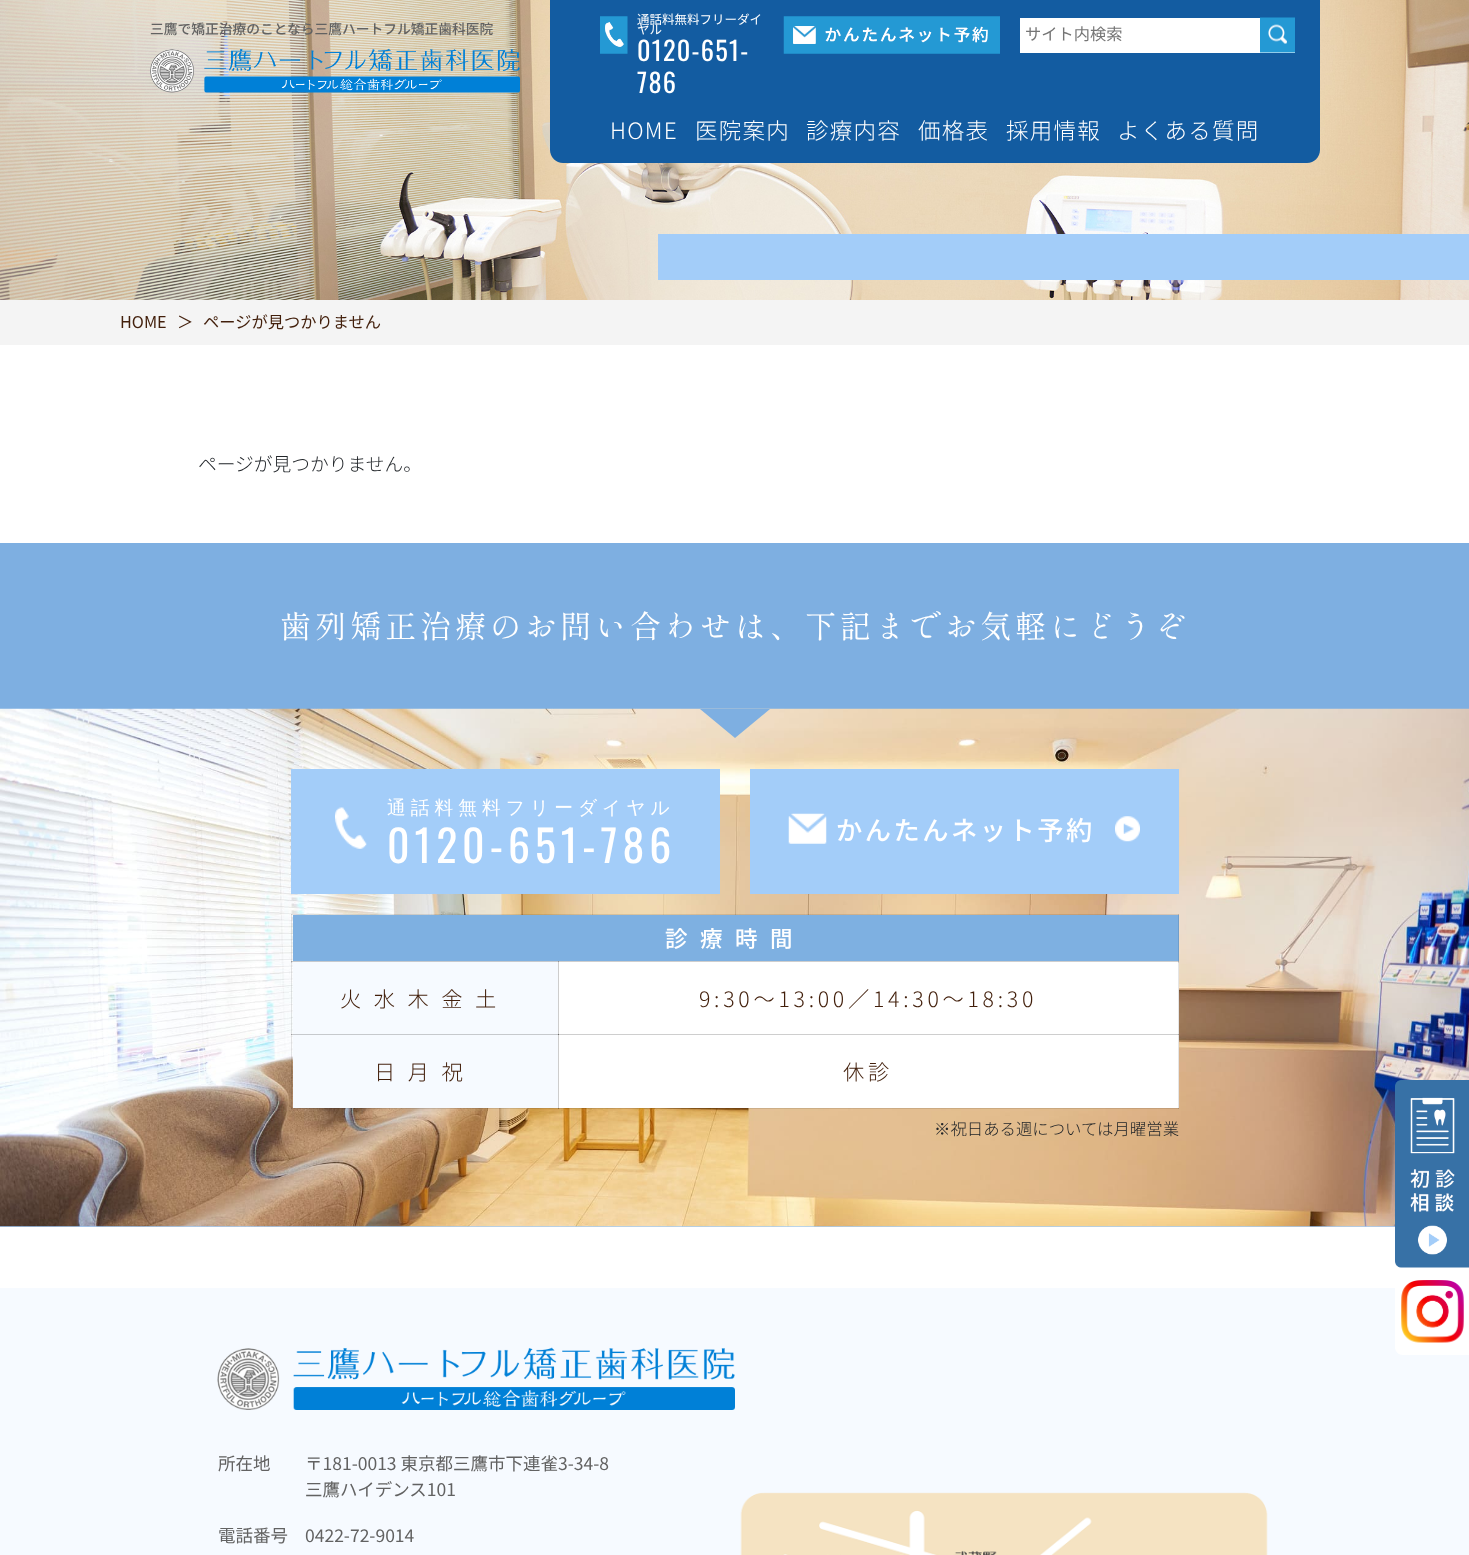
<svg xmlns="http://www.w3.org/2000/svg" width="1469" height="1555">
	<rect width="100%" height="100%" fill="#FFFFFF" />
	<image x="0" y="0" width="1469" height="300" href="assets/img1.png" />
	<rect x="658" y="234" width="811" height="46" fill="#A3CDF9" />
	<text x="150" y="34" font-family="Noto Sans JP" font-size="13.75" font-weight="500" fill="#626262">三鷹で矯正治療のことなら三鷹ハートフル矯正歯科医院</text>
	<image x="150" y="48" width="370" height="45" href="assets/img2.png" />
	<path d="M550 0H1320V150C1320 157 1314 163 1307 163H563C556 163 550 157 550 150Z" fill="#135CA1" />
	<image x="600" y="16" width="28" height="38" href="assets/img3.png" />
	<g font-family="Noto Sans JP" font-size="12.5" fill="#FFFFFF">
		<text x="637" y="24">通話料無料フリーダイ</text>
		<text x="637" y="34">ヤル</text>
	</g>
	<g font-family="Oswald" font-size="26.25" letter-spacing="1.25" fill="#FFFFFF">
		<text x="637" y="61">0120-651-</text>
		<text x="637" y="93">786</text>
	</g>
	<image x="783" y="16" width="217" height="38" href="assets/img4.png" />
	<rect x="1020" y="18" width="275" height="35" fill="#FFFFFF" />
	<text x="1025" y="40" font-family="Noto Sans JP" font-size="16.25" fill="#757575">サイト内検索</text>
	<image x="1260" y="17" width="35" height="36" href="assets/img5.png" />
	<g font-family="Noto Sans JP" font-size="22.5" font-weight="300" letter-spacing="1.25" fill="#FFFFFF">
		<text x="610" y="139">HOME</text>
		<text x="695" y="139">医院案内</text>
		<text x="806" y="139">診療内容</text>
		<text x="918" y="139">価格表</text>
		<text x="1006" y="139">採用情報</text>
		<text x="1117" y="139">よくある質問</text>
	</g>
	<rect x="0" y="300" width="1469" height="45" fill="#F4F4F4" />
	<g font-family="Noto Sans JP" font-size="16.25" fill="#421F0B">
		<text x="120" y="328">HOME</text>
		<text x="177" y="328">＞</text>
		<text x="203" y="328">ページが見つかりません</text>
	</g>
	<text x="198" y="471" font-family="Noto Sans JP" font-size="18.75" font-weight="300" fill="#212529">ページが見つかりません。</text>
	<rect x="0" y="543" width="1469" height="166" fill="#7EAFE1" />
	<text x="280" y="638" font-family="Shippori Mincho" font-size="31.25" letter-spacing="3.75" fill="#FFFFFF">歯列矯正治療のお問い合わせは、下記までお気軽にどうぞ</text>
	<rect x="0" y="1226" width="1395" height="1" fill="#A3CDF9" />
	<image x="0" y="708" width="1469" height="519" href="assets/img6.png" />
	<path d="M700 709H770L735 738Z" fill="#7EAFE1" />
	<rect x="291" y="769" width="429" height="125" fill="#A3CDF9" />
	<image x="335" y="807" width="32" height="42" href="assets/img7.png" />
	<text x="387" y="814" font-family="WenQuanYi Zen Hei" font-size="18.75" font-weight="500" letter-spacing="5" fill="#FFFFFF">通話料無料フリーダイヤル</text>
	<text x="387" y="863" font-family="Oswald" font-size="43.75" letter-spacing="5" fill="#FFFFFF">0120-651-786</text>
	<rect x="750" y="769" width="429" height="125" fill="#A3CDF9" />
	<image x="788" y="813" width="39" height="31" href="assets/img8.png" />
	<text x="836" y="840" font-family="Noto Sans JP" font-size="26.25" font-weight="500" letter-spacing="2.5" fill="#FFFFFF">かんたんネット予約</text>
	<image x="1115" y="816" width="25" height="26" href="assets/img9.png" />
	<rect x="293" y="915" width="886" height="46" fill="#7EB0E1" />
	<rect x="291" y="914" width="888" height="1" fill="#000000" fill-opacity="0.1" />
	<rect x="558" y="962" width="621" height="72" fill="#FFFFFF" />
	<rect x="558" y="961" width="621" height="1" fill="#E6E6E6" />
	<rect x="558" y="1034" width="621" height="1" fill="#E6E6E6" />
	<rect x="558" y="1035" width="621" height="73" fill="#FFFFFF" />
	<rect x="1178" y="1034" width="1" height="75" fill="#000000" fill-opacity="0.1" />
	<rect x="1178" y="961" width="1" height="74" fill="#000000" fill-opacity="0.1" />
	<rect x="1178" y="914" width="1" height="49" fill="#000000" fill-opacity="0.1" />
	<rect x="293" y="961" width="265" height="147" fill="#F6FAFF" />
	<rect x="558" y="1108" width="621" height="1" fill="#000000" fill-opacity="0.1" />
	<rect x="558" y="1034" width="1" height="75" fill="#000000" fill-opacity="0.1" />
	<rect x="291" y="1034" width="268" height="1" fill="#000000" fill-opacity="0.1" />
	<rect x="558" y="1034" width="1" height="75" fill="#000000" fill-opacity="0.1" />
	<rect x="558" y="1034" width="621" height="1" fill="#000000" fill-opacity="0.1" />
	<rect x="558" y="961" width="1" height="74" fill="#000000" fill-opacity="0.1" />
	<rect x="291" y="961" width="268" height="1" fill="#000000" fill-opacity="0.1" />
	<rect x="558" y="961" width="1" height="74" fill="#000000" fill-opacity="0.1" />
	<rect x="291" y="1108" width="268" height="1" fill="#000000" fill-opacity="0.1" />
	<rect x="291" y="1034" width="1" height="75" fill="#000000" fill-opacity="0.1" />
	<rect x="291" y="1034" width="268" height="1" fill="#000000" fill-opacity="0.1" />
	<rect x="291" y="961" width="1" height="74" fill="#000000" fill-opacity="0.1" />
	<rect x="291" y="961" width="888" height="1" fill="#000000" fill-opacity="0.1" />
	<rect x="291" y="914" width="1" height="49" fill="#000000" fill-opacity="0.1" />
	<text x="665" y="947" font-family="Noto Sans JP" font-size="22.5" font-weight="500" letter-spacing="12.5" fill="#FFFFFF">診療時間</text>
	<text x="340" y="1007" font-family="Noto Sans JP" font-size="21.25" font-weight="300" letter-spacing="12.5" fill="#421F0B">火水木金土</text>
	<text x="699" y="1007" font-family="Noto Sans JP" font-size="21.25" font-weight="300" letter-spacing="3.75" fill="#421F0B">9:30〜13:00／14:30〜18:30</text>
	<text x="374" y="1080" font-family="Noto Sans JP" font-size="21.25" font-weight="300" letter-spacing="12.5" fill="#421F0B">日月祝</text>
	<text x="843" y="1080" font-family="Noto Sans JP" font-size="21.25" font-weight="300" letter-spacing="3.75" fill="#421F0B">休診</text>
	<text x="934" y="1135" font-family="Noto Sans JP" font-size="16.4" font-weight="300" fill="#212529">※祝日ある週については月曜営業</text>
	<rect x="0" y="1288" width="1469" height="267" fill="#F6FAFF" />
	<image x="217" y="1347" width="518" height="63" href="assets/img10.png" />
	<g font-family="Noto Sans JP" font-size="17.5" fill="#626262">
		<text x="218" y="1470">所在地</text>
		<text x="305" y="1470">〒181-0013 東京都三鷹市下連雀3-34-8</text>
		<text x="305" y="1496">三鷹ハイデンス101</text>
		<text x="218" y="1542">電話番号</text>
		<text x="305" y="1542">0422-72-9014</text>
	</g>
	<image x="740" y="1492" width="528" height="63" href="assets/img11.png" />
	<image x="1395" y="1080" width="74" height="188" href="assets/img12.png" />
	<path d="M1403 1268H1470V1355H1403C1398.5 1355 1395 1351.5 1395 1347V1276C1395 1271.5 1398.5 1268 1403 1268Z" fill="#FFFFFF" />
	<image x="1401" y="1280" width="63" height="63" href="assets/img13.png" />
</svg>
